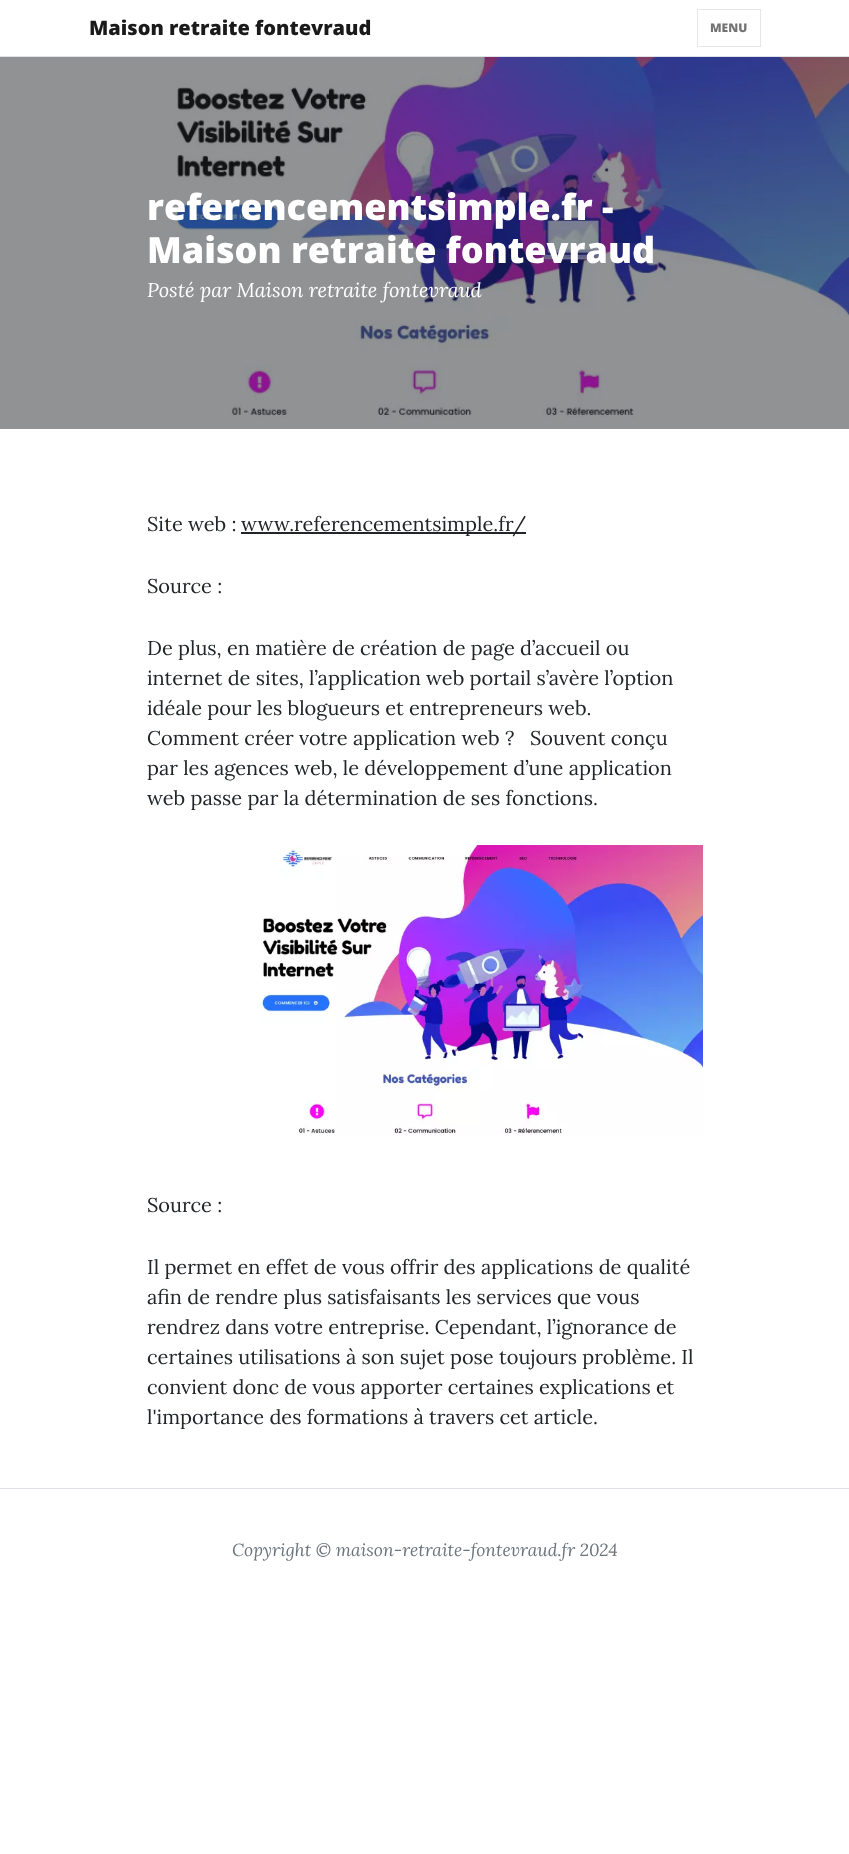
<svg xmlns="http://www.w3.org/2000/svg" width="849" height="1854">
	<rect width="100%" height="100%" fill="#FFFFFF" />
	<rect x="0" y="56" width="849" height="1" fill="#DEE2E6" />
	<text x="89" y="35" font-family="Open Sans" font-size="20" font-weight="800" fill="#1A1A1A">Maison retraite fontevraud</text>
	<rect x="697.5" y="9.5" width="63" height="37" fill="none" stroke="#E6E6E6" />
	<text x="710" y="32" font-family="Open Sans" font-size="12" font-weight="800" fill="#737373">MENU</text>
	<image x="0" y="57" width="849" height="372" href="assets/img1.png" />
	<g font-family="Open Sans" font-size="36" font-weight="800" fill="#FFFFFF">
		<text x="147" y="220">referencementsimple.fr -</text>
		<text x="147" y="263">Maison retraite fontevraud</text>
	</g>
	<text x="147" y="297" font-family="Lora" font-size="20" font-style="italic" fill="#FFFFFF">Posté par Maison retraite fontevraud</text>
	<text x="147" y="531" font-family="Lora" font-size="20" fill="#212529">Site web :</text>
	<rect x="241" y="532" width="285" height="2" fill="#212529" />
	<g font-family="Lora" font-size="20" fill="#212529">
		<text x="241" y="531">www.referencementsimple.fr/</text>
		<text x="147" y="593">Source :</text>
		<text x="147" y="655">De plus, en matière de création de page d’accueil ou</text>
		<text x="147" y="685">internet de sites, l’application web portail s’avère l’option</text>
		<text x="147" y="715">idéale pour les blogueurs et entrepreneurs web.</text>
		<text x="147" y="745">Comment créer votre application web ?</text>
		<text x="530" y="745">Souvent conçu</text>
		<text x="147" y="775">par les agences web, le développement d’une application</text>
		<text x="147" y="805">web passe par la détermination de ses fonctions.</text>
	</g>
	<image x="259" y="845" width="444" height="290" href="assets/img2.png" />
	<g font-family="Lora" font-size="20" fill="#212529">
		<text x="147" y="1212">Source :</text>
		<text x="147" y="1274">Il permet en effet de vous offrir des applications de qualité</text>
		<text x="147" y="1304">afin de rendre plus satisfaisants les services que vous</text>
		<text x="147" y="1334">rendrez dans votre entreprise. Cependant, l’ignorance de</text>
		<text x="147" y="1364">certaines utilisations à son sujet pose toujours problème. Il</text>
		<text x="147" y="1394">convient donc de vous apporter certaines explications et</text>
		<text x="147" y="1424">l'importance des formations à travers cet article.</text>
	</g>
	<rect x="0" y="1488" width="849" height="1" fill="#DEE2E6" />
	<text x="232" y="1556" font-family="Lora" font-size="17.5" font-style="italic" fill="#6C757D">Copyright © maison-retraite-fontevraud.fr 2024</text>
</svg>
